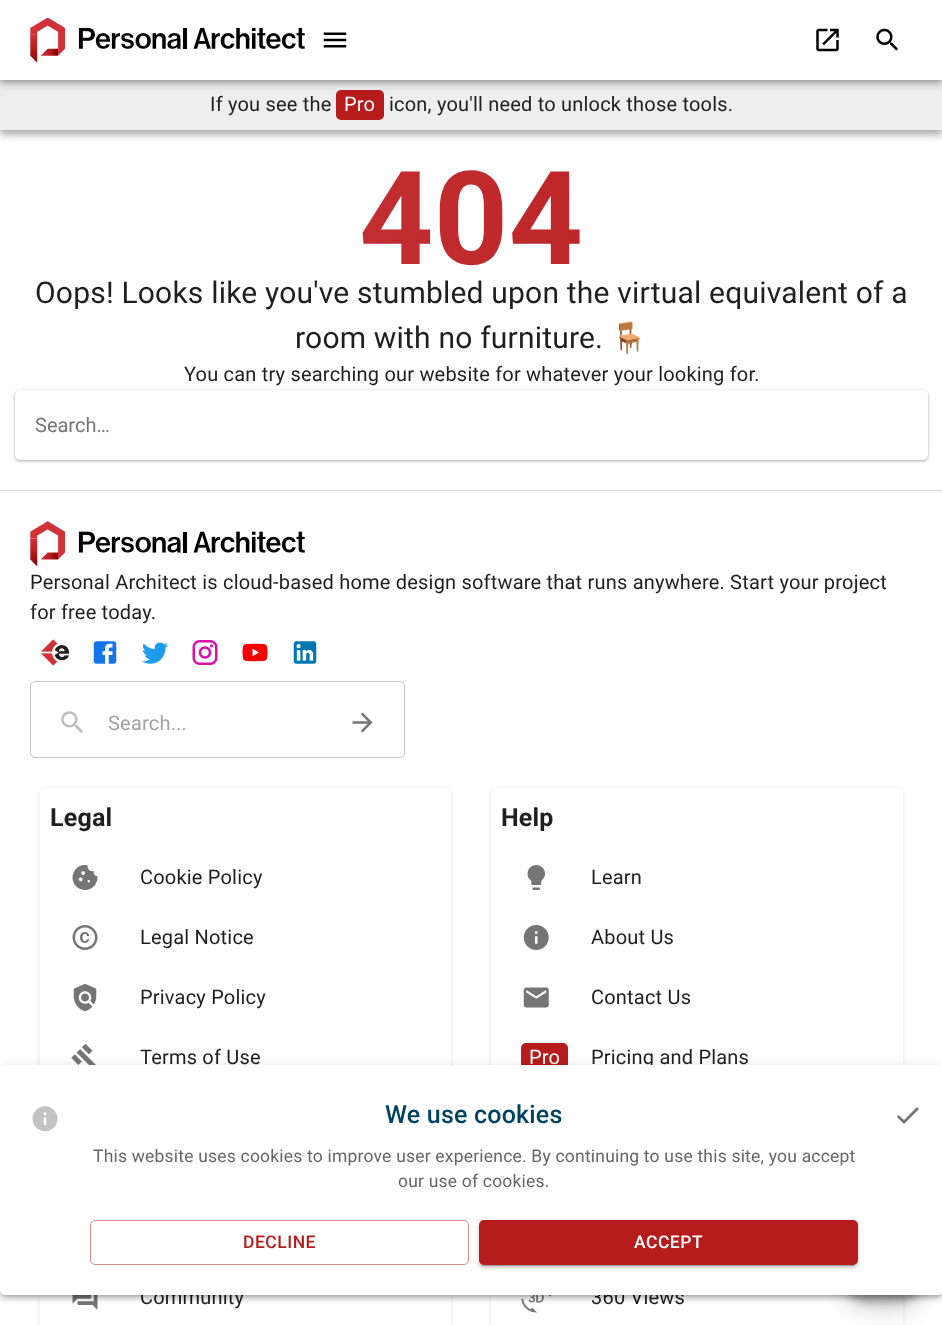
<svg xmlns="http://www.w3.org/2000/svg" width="942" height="1325">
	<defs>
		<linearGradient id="g1" gradientUnits="userSpaceOnUse" x1="15" y1="220" x2="928" y2="220"><stop offset="0" stop-color="#C9383E" /><stop offset="1" stop-color="#B71C1C" /></linearGradient>
	</defs>
	<rect width="100%" height="100%" fill="#FFFFFF" />
	<rect x="0" y="84" width="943" height="50" fill="#000000" fill-opacity="0.23" filter="blur(4px)" />
	<rect x="0" y="84" width="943" height="50" fill="#000000" fill-opacity="0.16" filter="blur(4px)" />
	<rect x="0" y="80" width="942" height="50" fill="#EEEEEE" />
	<rect x="336" y="90" width="48" height="30" rx="5" fill="#B71C1C" />
	<rect x="0" y="1" width="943" height="80" fill="#000000" fill-opacity="0.12" filter="blur(6px)" />
	<rect x="0" y="5" width="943" height="80" fill="#000000" fill-opacity="0.14" filter="blur(3px)" />
	<rect x="1" y="4" width="940" height="77" fill="#000000" fill-opacity="0.2" filter="blur(2.5px)" />
	<rect x="0" y="0" width="942" height="80" fill="#FFFFFF" />
	<image x="30" y="18" width="275" height="45" href="assets/img1.png" />
	<image x="323" y="32" width="24" height="16" href="assets/img2.png" />
	<image x="816" y="28" width="23" height="24" href="assets/img3.png" />
	<image x="876" y="28" width="22" height="23" href="assets/img4.png" />
	<text x="210" y="111" font-family="Roboto" font-size="20" letter-spacing="0.2" fill="#1F1F1F">If you see the</text>
	<text x="344" y="111" font-family="Roboto" font-size="20" letter-spacing="0.2" fill="#FFFFFF">Pro</text>
	<text x="389" y="111" font-family="Roboto" font-size="20" letter-spacing="0.2" fill="#1F1F1F">icon, you'll need to unlock those tools.</text>
	<text x="359" y="264" font-family="Roboto" font-size="130" font-weight="700" letter-spacing="0.2" fill="url(#g1)">404</text>
	<g font-family="Roboto" font-size="30" letter-spacing="0.2" fill="#1F1F1F">
		<text x="35" y="303">Oops! Looks like you've stumbled upon the virtual equivalent of a</text>
		<text x="295" y="348">room with no furniture.</text>
	</g>
	<text x="610" y="348" font-family="Noto Color Emoji" font-size="30" letter-spacing="0.2" fill="#1F1F1F">🪑</text>
	<text x="184" y="381" font-family="Roboto" font-size="20" letter-spacing="0.2" fill="#1F1F1F">You can try searching our website for whatever your looking for.</text>
	<rect x="15" y="391" width="913" height="70" rx="5" fill="#000000" fill-opacity="0.24" filter="blur(1px)" />
	<rect x="15" y="391" width="913" height="70" rx="5" fill="#000000" fill-opacity="0.12" filter="blur(2px)" />
	<rect x="15" y="390" width="913" height="70" rx="5" fill="#FFFFFF" />
	<text x="35" y="432" font-family="Roboto" font-size="20" fill="#757575">Search…</text>
	<rect x="0" y="490" width="942" height="1" fill="#E0E0E0" />
	<image x="30" y="521" width="275" height="45" href="assets/img5.png" />
	<g font-family="Roboto" font-size="20" letter-spacing="0.2" fill="#1F1F1F">
		<text x="30" y="589">Personal Architect is cloud-based home design software that runs anywhere. Start your project</text>
		<text x="30" y="619">for free today.</text>
	</g>
	<image x="41" y="639" width="29" height="27" href="assets/img6.png" />
	<image x="93" y="641" width="24" height="23" href="assets/img7.png" />
	<image x="142" y="642" width="26" height="22" href="assets/img8.png" />
	<image x="192" y="640" width="26" height="25" href="assets/img9.png" />
	<image x="242" y="643" width="26" height="19" href="assets/img10.png" />
	<image x="293" y="641" width="24" height="23" href="assets/img11.png" />
	<image x="61" y="711" width="22" height="22" href="assets/img12.png" />
	<image x="352" y="712" width="21" height="21" href="assets/img13.png" />
	<rect x="30.5" y="681.5" width="374" height="76" rx="4.5" fill="none" stroke="#C4C4C4" />
	<text x="108" y="730" font-family="Roboto" font-size="20" letter-spacing="0.2" fill="#A2A2A2">Search...</text>
	<rect x="40" y="789" width="411" height="320" rx="5" fill="#000000" fill-opacity="0.12" filter="blur(2px)" />
	<rect x="40" y="788" width="411" height="320" rx="5" fill="#FFFFFF" />
	<text x="50" y="826" font-family="Roboto" font-size="25" font-weight="700" letter-spacing="0.2" fill="#1F1F1F">Legal</text>
	<image x="72" y="865" width="26" height="25" href="assets/img14.png" />
	<text x="140" y="884" font-family="Roboto" font-size="20" letter-spacing="0.2" fill="#1F1F1F">Cookie Policy</text>
	<image x="72" y="925" width="26" height="25" href="assets/img15.png" />
	<text x="140" y="944" font-family="Roboto" font-size="20" letter-spacing="0.2" fill="#1F1F1F">Legal Notice</text>
	<image x="73" y="983" width="24" height="29" href="assets/img16.png" />
	<text x="140" y="1004" font-family="Roboto" font-size="20" letter-spacing="0.2" fill="#1F1F1F">Privacy Policy</text>
	<image x="71" y="1043" width="25" height="22" href="assets/img17.png" />
	<text x="140" y="1064" font-family="Roboto" font-size="20" letter-spacing="0.2" fill="#1F1F1F">Terms of Use</text>
	<rect x="491" y="789" width="412" height="320" rx="5" fill="#000000" fill-opacity="0.12" filter="blur(2px)" />
	<rect x="491" y="789" width="412" height="320" rx="5" fill="#000000" fill-opacity="0.14" filter="blur(0.5px)" />
	<rect x="491" y="788" width="412" height="320" rx="5" fill="#FFFFFF" />
	<text x="501" y="826" font-family="Roboto" font-size="25" font-weight="700" letter-spacing="0.2" fill="#1F1F1F">Help</text>
	<image x="527" y="865" width="18" height="25" href="assets/img18.png" />
	<text x="591" y="884" font-family="Roboto" font-size="20" letter-spacing="0.2" fill="#1F1F1F">Learn</text>
	<image x="523" y="925" width="26" height="25" href="assets/img19.png" />
	<text x="591" y="944" font-family="Roboto" font-size="20" letter-spacing="0.2" fill="#1F1F1F">About Us</text>
	<image x="523" y="987" width="26" height="21" href="assets/img20.png" />
	<text x="591" y="1004" font-family="Roboto" font-size="20" letter-spacing="0.2" fill="#1F1F1F">Contact Us</text>
	<rect x="521" y="1043" width="47" height="30" rx="5" fill="#B71C1C" />
	<text x="529" y="1064" font-family="Roboto" font-size="20" letter-spacing="0.2" fill="#FFFFFF">Pro</text>
	<text x="591" y="1064" font-family="Roboto" font-size="20" letter-spacing="0.2" fill="#1F1F1F">Pricing and Plans</text>
	<rect x="40" y="1149" width="411" height="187" rx="5" fill="#000000" fill-opacity="0.12" filter="blur(2px)" />
	<rect x="40" y="1295" width="411" height="30" fill="#FFFFFF" />
	<image x="72" y="1295" width="26" height="15" href="assets/img21.png" />
	<text x="140" y="1304" font-family="Roboto" font-size="20" letter-spacing="0.2" fill="#1F1F1F">Community</text>
	<rect x="491" y="1149" width="412" height="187" rx="5" fill="#000000" fill-opacity="0.12" filter="blur(2px)" />
	<rect x="491" y="1295" width="412" height="30" fill="#FFFFFF" />
	<image x="521" y="1295" width="30" height="18" href="assets/img22.png" />
	<text x="591" y="1304" font-family="Roboto" font-size="20" letter-spacing="0.2" fill="#1F1F1F">360 Views</text>
	<rect x="0" y="1066" width="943" height="230" rx="5" fill="#000000" fill-opacity="0.12" filter="blur(5px)" />
	<rect x="0" y="1069" width="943" height="230" rx="5" fill="#000000" fill-opacity="0.14" filter="blur(2.5px)" />
	<rect x="3" y="1071" width="937" height="225" rx="2.5" fill="#000000" fill-opacity="0.2" filter="blur(2px)" />
	<rect x="843" y="1223" width="80" height="80" rx="25" fill="#000000" fill-opacity="0.23" filter="blur(4px)" />
	<rect x="843" y="1228" width="80" height="80" rx="25" fill="#000000" fill-opacity="0.19" filter="blur(12.5px)" />
	<rect x="0" y="1065" width="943" height="230" rx="5" fill="#FFFFFF" />
	<image x="32" y="1106" width="26" height="26" href="assets/img23.png" />
	<text x="385" y="1123" font-family="Roboto" font-size="25" font-weight="500" letter-spacing="0.2" fill="#014361">We use cookies</text>
	<g font-family="Roboto" font-size="17.5" letter-spacing="0.2" fill="#666666">
		<text x="93" y="1162">This website uses cookies to improve user experience. By continuing to use this site, you accept</text>
		<text x="398" y="1187">our use of cookies.</text>
	</g>
	<rect x="90.5" y="1220.5" width="378" height="44" rx="4.5" fill="none" stroke="#DB8E8E" />
	<text x="243" y="1248" font-family="Roboto" font-size="17.5" font-weight="500" letter-spacing="0.5" fill="#B71C1C">DECLINE</text>
	<rect x="479" y="1221" width="379" height="45" rx="5" fill="#000000" fill-opacity="0.12" filter="blur(3px)" />
	<rect x="479" y="1223" width="379" height="45" rx="5" fill="#000000" fill-opacity="0.14" filter="blur(1px)" />
	<rect x="481" y="1226" width="374" height="40" rx="2.5" fill="#000000" fill-opacity="0.2" filter="blur(0.5px)" />
	<rect x="479" y="1220" width="379" height="45" rx="5" fill="#B71C1C" />
	<text x="634" y="1248" font-family="Roboto" font-size="17.5" font-weight="500" letter-spacing="0.5" fill="#FFFFFF">ACCEPT</text>
	<path d="M904 1120L898.5 1115L897 1117L904 1124L919 1109L917 1107Z" fill="#757575" />
</svg>
